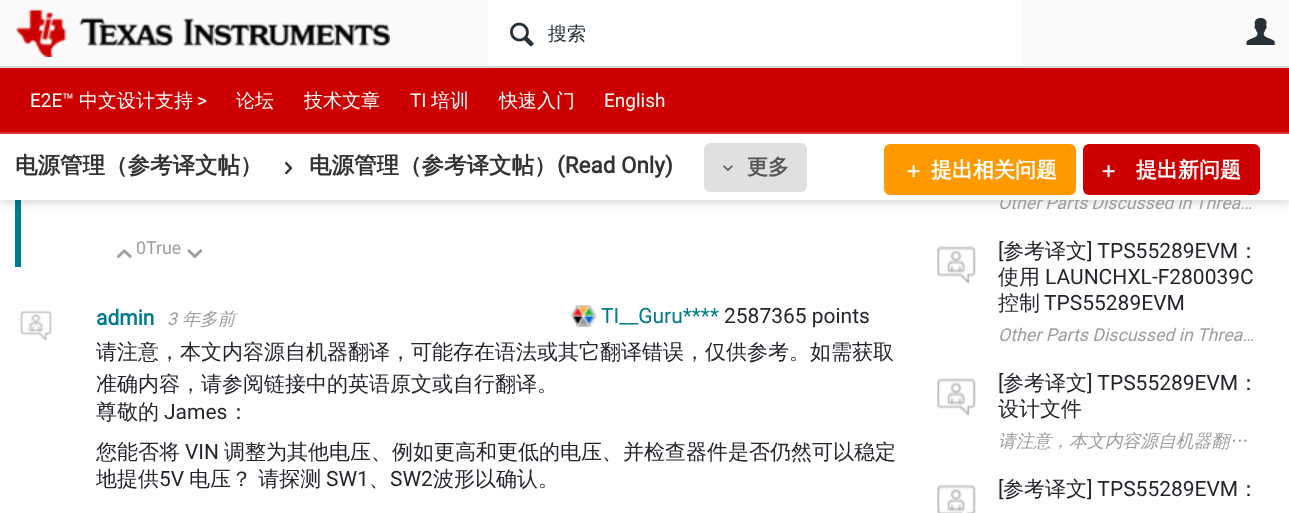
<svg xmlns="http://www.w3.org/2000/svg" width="1289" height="513">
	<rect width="100%" height="100%" fill="#FFFFFF" />
	<rect x="15" y="200" width="6" height="67" fill="#007C8C" />
	<rect x="0" y="3" width="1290" height="200" fill="#000000" fill-opacity="0.15" filter="blur(4px)" />
	<text x="998" y="209" word-spacing="-0.5" font-family="Roboto" font-size="17.8" font-style="italic" fill="#9C9DA0">Other Parts Discussed in Threa…</text>
	<rect x="0" y="134" width="1289" height="66" fill="#FFFFFF" />
	<rect x="0" y="0" width="1289" height="66" fill="#FAFAFA" />
	<rect x="0" y="66" width="1289" height="2" fill="#CFD8DC" />
	<image x="16" y="9" width="374" height="48" href="assets/img1.png" />
	<rect x="488" y="0" width="535" height="66" fill="#FFFFFF" />
	<image x="510" y="22" width="24" height="25" href="assets/img2.png" />
	<text x="548" y="40" font-family="WenQuanYi Zen Hei" font-size="19" font-weight="500" fill="#263238">搜索</text>
	<image x="1246" y="18" width="29" height="27" href="assets/img3.png" />
	<rect x="0" y="68" width="1289" height="64" fill="#CC0000" />
	<rect x="0" y="132" width="1289" height="2" fill="#D63333" />
	<text x="30" y="107" font-family="Roboto" font-size="19" fill="#FFFFFF">E2E™</text>
	<text x="79" y="107" font-family="WenQuanYi Zen Hei" font-size="19" font-weight="500" fill="#FFFFFF">中文设计支持</text>
	<text x="197" y="107" font-family="Roboto" font-size="19" fill="#FFFFFF">&gt;</text>
	<g font-family="WenQuanYi Zen Hei" font-size="19" font-weight="500" fill="#FFFFFF">
		<text x="236" y="107">论坛</text>
		<text x="304" y="107">技术文章</text>
	</g>
	<text x="410" y="107" font-family="Roboto" font-size="19" fill="#FFFFFF">TI</text>
	<g font-family="WenQuanYi Zen Hei" font-size="19" font-weight="500" fill="#FFFFFF">
		<text x="431" y="107">培训</text>
		<text x="499" y="107">快速入门</text>
	</g>
	<text x="604" y="107" font-family="Roboto" font-size="19" fill="#FFFFFF">English</text>
	<text x="15" y="173" font-family="WenQuanYi Zen Hei" font-size="22.5" font-weight="700" fill="#333333">电源管理（参考译文帖）</text>
	<image x="285" y="162" width="8" height="13" href="assets/img4.png" />
	<text x="309" y="173" font-family="WenQuanYi Zen Hei" font-size="22.5" font-weight="700" fill="#333333">电源管理（参考译文帖）</text>
	<text x="557" y="173" font-family="Roboto" font-size="22.5" font-weight="700" fill="#333333">(Read Only)</text>
	<rect x="704" y="143" width="103" height="49" rx="6" fill="#E0E0E0" />
	<image x="723" y="165" width="10" height="6" href="assets/img5.png" />
	<text x="747" y="174" font-family="WenQuanYi Zen Hei" font-size="21" font-weight="700" fill="#555555">更多</text>
	<rect x="884" y="144" width="192" height="51" rx="6" fill="#FF9900" />
	<image x="907" y="165" width="13" height="13" href="assets/img6.png" />
	<text x="931" y="177" font-family="WenQuanYi Zen Hei" font-size="21" font-weight="700" fill="#FFFFFF">提出相关问题</text>
	<rect x="1083" y="144" width="177" height="51" rx="6" fill="#CC0000" />
	<image x="1102" y="165" width="13" height="13" href="assets/img7.png" />
	<text x="1136" y="177" font-family="WenQuanYi Zen Hei" font-size="21" font-weight="700" fill="#FFFFFF">提出新问题</text>
	<image x="117" y="249" width="15" height="9" href="assets/img8.png" />
	<text x="136" y="254" font-family="Roboto" font-size="17.8" fill="#9C9DA0">0True</text>
	<image x="187" y="249" width="16" height="9" href="assets/img9.png" />
	<image x="19" y="310" width="33" height="31" href="assets/img10.png" />
	<text x="96" y="325" font-family="Roboto" font-size="21" font-weight="700" fill="#007C8C">admin</text>
	<text x="167" y="325" font-family="Roboto" font-size="17.8" font-style="italic" fill="#9C9DA0">3</text>
	<text x="182" y="325" font-family="WenQuanYi Zen Hei" font-size="17.8" font-weight="500" font-style="italic" fill="#9C9DA0">年多前</text>
	<image x="571" y="305" width="26" height="22" href="assets/img11.png" />
	<text x="601" y="323" font-family="Roboto" font-size="21" fill="#007C8C">TI__Guru****</text>
	<text x="724" y="323" font-family="Roboto" font-size="21" fill="#22252C">2587365 points</text>
	<g font-family="WenQuanYi Zen Hei" font-size="21" font-weight="500" fill="#22252C">
		<text x="96" y="359">请注意，本文内容源自机器翻译，可能存在语法或其它翻译错误，仅供参考。如需获取</text>
		<text x="96" y="391">准确内容，请参阅链接中的英语原文或自行翻译。</text>
		<text x="96" y="419">尊敬的</text>
	</g>
	<text x="164" y="419" font-family="Roboto" font-size="21" fill="#22252C">James</text>
	<g font-family="WenQuanYi Zen Hei" font-size="21" font-weight="500" fill="#22252C">
		<text x="228" y="419">：</text>
		<text x="96" y="459">您能否将</text>
	</g>
	<text x="185" y="459" font-family="Roboto" font-size="21" fill="#22252C">VIN</text>
	<g font-family="WenQuanYi Zen Hei" font-size="21" font-weight="500" fill="#22252C">
		<text x="224" y="459">调整为其他电压、例如更高和更低的电压、并检查器件是否仍然可以稳定</text>
		<text x="96" y="486">地提供</text>
	</g>
	<text x="159" y="486" font-family="Roboto" font-size="21" fill="#22252C">5V</text>
	<text x="189" y="486" font-family="WenQuanYi Zen Hei" font-size="21" font-weight="500" fill="#22252C">电压？ 请探测</text>
	<text x="326" y="486" font-family="Roboto" font-size="21" fill="#22252C">SW1</text>
	<text x="369" y="486" font-family="WenQuanYi Zen Hei" font-size="21" font-weight="500" fill="#22252C">、</text>
	<text x="390" y="486" font-family="Roboto" font-size="21" fill="#22252C">SW2</text>
	<text x="433" y="486" font-family="WenQuanYi Zen Hei" font-size="21" font-weight="500" fill="#22252C">波形以确认。</text>
	<text x="998" y="258" font-family="Roboto" font-size="21" fill="#22252C">[</text>
	<text x="1003" y="258" font-family="WenQuanYi Zen Hei" font-size="21" font-weight="500" fill="#22252C">参考译文</text>
	<text x="1087" y="258" font-family="Roboto" font-size="21" fill="#22252C">] TPS55289EVM</text>
	<g font-family="WenQuanYi Zen Hei" font-size="21" font-weight="500" fill="#22252C">
		<text x="1238" y="258">：</text>
		<text x="998" y="284">使用</text>
	</g>
	<text x="1045" y="284" font-family="Roboto" font-size="21" fill="#22252C">LAUNCHXL-F280039C</text>
	<text x="998" y="310" font-family="WenQuanYi Zen Hei" font-size="21" font-weight="500" fill="#22252C">控制</text>
	<text x="1044" y="310" font-family="Roboto" font-size="21" fill="#22252C">TPS55289EVM</text>
	<image x="937" y="246" width="39" height="38" href="assets/img12.png" />
	<text x="998" y="341" font-family="Roboto" font-size="17.8" font-style="italic" fill="#9C9DA0">Other Parts Discussed in Threa…</text>
	<text x="998" y="390" font-family="Roboto" font-size="21" fill="#22252C">[</text>
	<text x="1003" y="390" font-family="WenQuanYi Zen Hei" font-size="21" font-weight="500" fill="#22252C">参考译文</text>
	<text x="1087" y="390" font-family="Roboto" font-size="21" fill="#22252C">] TPS55289EVM</text>
	<g font-family="WenQuanYi Zen Hei" font-size="21" font-weight="500" fill="#22252C">
		<text x="1238" y="390">：</text>
		<text x="998" y="416">设计文件</text>
	</g>
	<image x="937" y="378" width="39" height="38" href="assets/img12.png" />
	<text x="998" y="447" font-family="WenQuanYi Zen Hei" font-size="17.8" font-weight="500" font-style="italic" fill="#9C9DA0">请注意，本文内容源自机器翻…</text>
	<image x="937" y="484" width="39" height="29" href="assets/img13.png" />
	<text x="998" y="496" font-family="Roboto" font-size="21" fill="#22252C">[</text>
	<text x="1003" y="496" font-family="WenQuanYi Zen Hei" font-size="21" font-weight="500" fill="#22252C">参考译文</text>
	<text x="1087" y="496" font-family="Roboto" font-size="21" fill="#22252C">] TPS55289EVM</text>
	<text x="1238" y="496" font-family="WenQuanYi Zen Hei" font-size="21" font-weight="500" fill="#22252C">：</text>
</svg>
